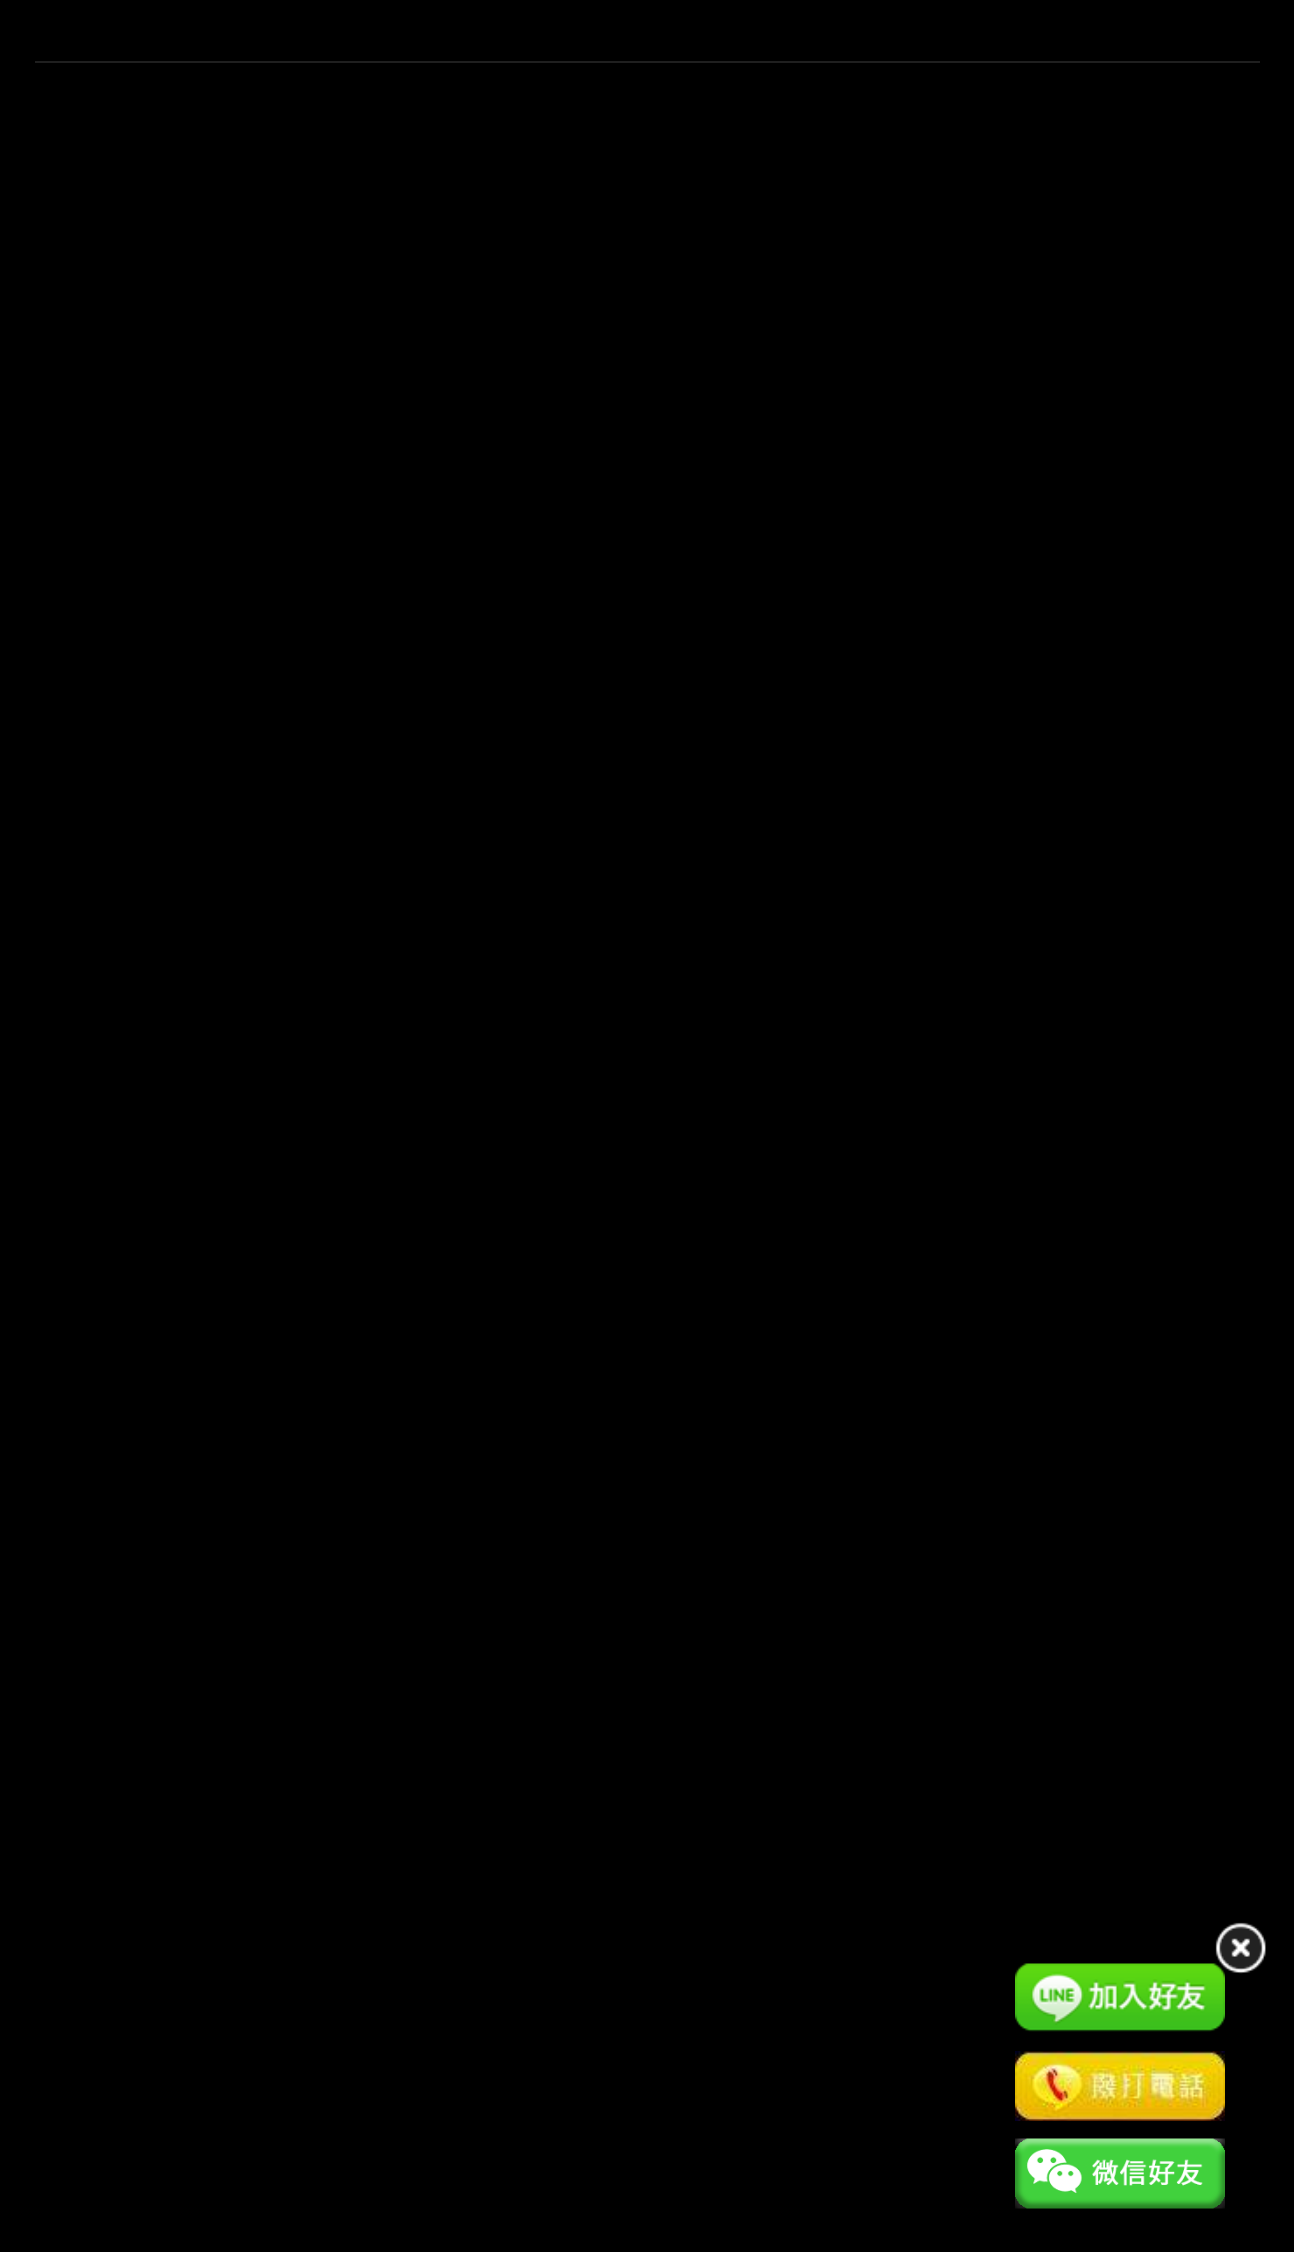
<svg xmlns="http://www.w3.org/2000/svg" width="1294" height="2252">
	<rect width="100%" height="100%" fill="#000000" />
	<rect x="35" y="61" width="1225" height="2" fill="#1F1F1F" />
	<image x="1015" y="1963" width="210" height="69" href="assets/img2.png" />
	<image x="1215" y="1922" width="51" height="52" href="assets/img1.png" />
	<image x="1015" y="2051" width="210" height="70" href="assets/img3.png" />
	<image x="1015" y="2138" width="210" height="71" href="assets/img4.png" />
</svg>
